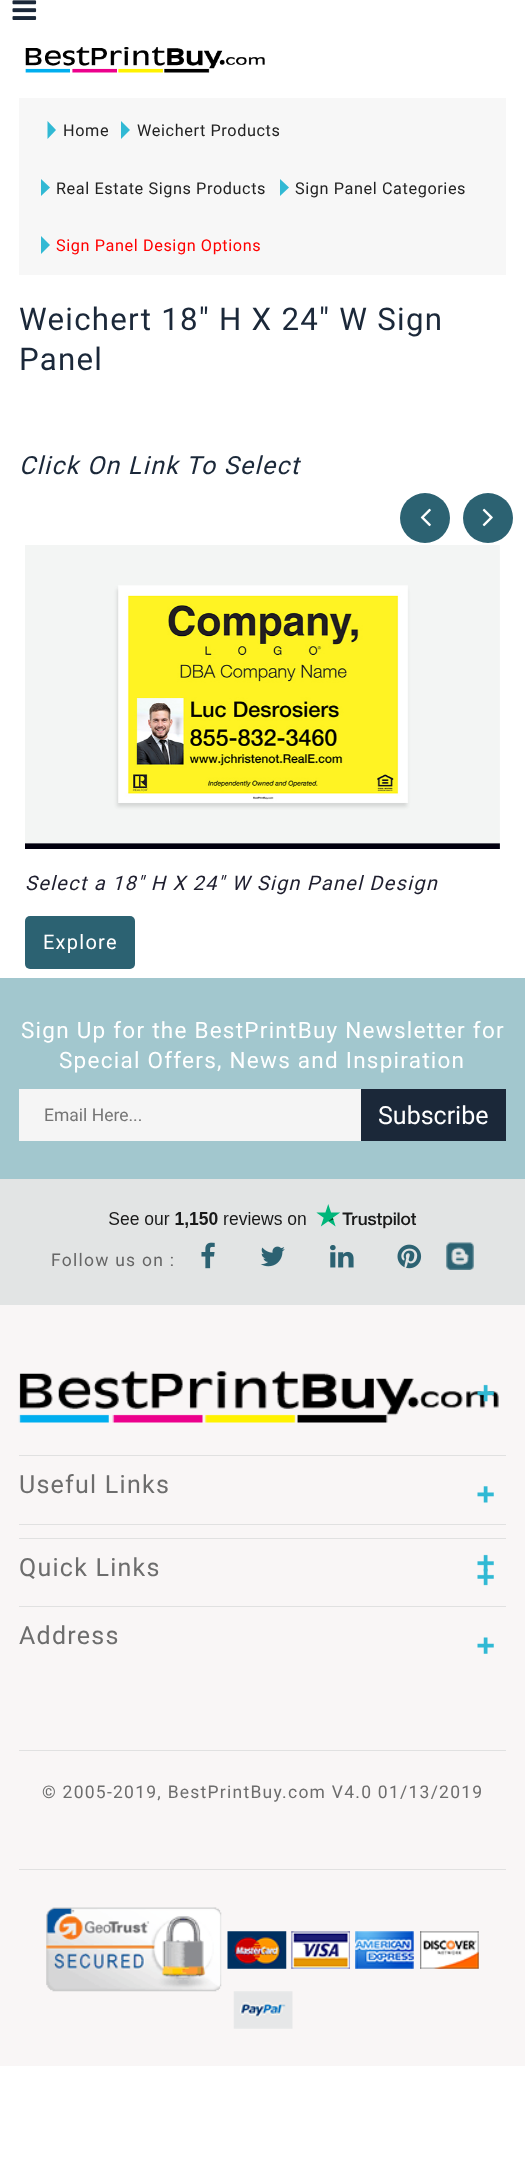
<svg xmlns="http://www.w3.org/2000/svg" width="525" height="2182">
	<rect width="100%" height="100%" fill="#FFFFFF" />
	<image x="12" y="0" width="25" height="20" href="assets/img1.png" />
	<image x="25" y="47" width="240" height="26" href="assets/img2.png" />
	<rect x="19" y="98" width="487" height="177" fill="#F7F7F7" />
	<path d="M47.5 139V121L56 130Z" fill="#31B9D4" />
	<text x="63" y="136" font-family="Roboto" font-size="16.25" letter-spacing="0.6" fill="#222222">Home</text>
	<path d="M121 139V121L130 130Z" fill="#31B9D4" />
	<text x="137" y="136" font-family="Roboto" font-size="16.25" letter-spacing="0.6" fill="#222222">Weichert Products</text>
	<path d="M41 196V179L50 187.5Z" fill="#31B9D4" />
	<text x="56" y="194" font-family="Roboto" font-size="16.25" letter-spacing="0.6" fill="#222222">Real Estate Signs Products</text>
	<path d="M280 196V179L289 187.5Z" fill="#31B9D4" />
	<text x="295" y="194" font-family="Roboto" font-size="16.25" letter-spacing="0.6" fill="#222222">Sign Panel Categories</text>
	<path d="M41 254V236L50 245Z" fill="#31B9D4" />
	<text x="56" y="251" font-family="Roboto" font-size="16.25" letter-spacing="0.6" fill="#FF0000">Sign Panel Design Options</text>
	<g font-family="Roboto" font-size="31.25" letter-spacing="1.25" fill="#1B2839">
		<text x="19" y="330">Weichert 18" H X 24" W Sign</text>
		<text x="19" y="370">Panel</text>
	</g>
	<text x="19" y="474" font-family="Roboto" font-size="25" font-style="italic" letter-spacing="1.25" fill="#1B2839">Click On Link To Select</text>
	<circle cx="425" cy="518" r="25" fill="#2C6272" />
	<image x="420" y="508" width="11" height="19" href="assets/img3.png" />
	<circle cx="488" cy="518" r="25" fill="#2C6272" />
	<image x="482" y="508" width="11" height="19" href="assets/img4.png" />
	<image x="25" y="545" width="475" height="304" href="assets/img5.png" />
	<text x="25" y="890" font-family="Roboto" font-size="20" font-style="italic" letter-spacing="1.25" fill="#1F1F2F">Select a 18" H X 24" W Sign Panel Design</text>
	<rect x="25" y="916" width="110" height="53" rx="5" fill="#2C6272" />
	<text x="43" y="949" font-family="Roboto" font-size="20" letter-spacing="1.25" fill="#FFFFFF">Explore</text>
	<rect x="0" y="978" width="525" height="201" fill="#A2C7CE" />
	<g font-family="Roboto" font-size="22.5" letter-spacing="1.25" fill="#FFFFFF">
		<text x="21" y="1038">Sign Up for the BestPrintBuy Newsletter for</text>
		<text x="59" y="1068">Special Offers, News and Inspiration</text>
	</g>
	<rect x="19" y="1089" width="342" height="52" fill="#F5F5F5" />
	<text x="44" y="1121" font-family="Roboto" font-size="17.5" fill="#757575">Email Here...</text>
	<rect x="361" y="1089" width="145" height="52" fill="#1B2839" />
	<text x="378" y="1124" font-family="Roboto" font-size="25" fill="#FFFFFF">Subscribe</text>
	<rect x="0" y="1179" width="525" height="126" fill="#E2E4E4" />
	<image x="109" y="1204" width="308" height="25" href="assets/img6.png" />
	<text x="51" y="1266" font-family="Roboto" font-size="17.5" letter-spacing="1.25" fill="#666666">Follow us on :</text>
	<image x="201" y="1242" width="14" height="27" href="assets/img7.png" />
	<image x="260" y="1246" width="25" height="21" href="assets/img8.png" />
	<image x="330" y="1245" width="24" height="23" href="assets/img9.png" />
	<image x="397" y="1244" width="25" height="25" href="assets/img10.png" />
	<image x="446" y="1242" width="28" height="28" href="assets/img11.png" />
	<rect x="0" y="1305" width="525" height="761" fill="#F9F6F6" />
	<rect x="19" y="1455" width="487" height="1" fill="#E1E1E1" />
	<image x="18" y="1371" width="481" height="52" href="assets/img12.png" />
	<image x="477" y="1384" width="17" height="18" href="assets/img13.png" />
	<rect x="19" y="1524" width="487" height="1" fill="#E1E1E1" />
	<text x="19" y="1493" font-family="Roboto" font-size="25" letter-spacing="1.25" fill="#6D6D6D">Useful Links</text>
	<image x="477" y="1486" width="17" height="17" href="assets/img14.png" />
	<rect x="19" y="1538" width="487" height="1" fill="#E1E1E1" />
	<image x="477" y="1554" width="17" height="18" href="assets/img15.png" />
	<rect x="19" y="1606" width="487" height="1" fill="#E1E1E1" />
	<text x="19" y="1576" font-family="Roboto" font-size="25" letter-spacing="1.25" fill="#6D6D6D">Quick Links</text>
	<image x="477" y="1568" width="17" height="18" href="assets/img16.png" />
	<text x="19" y="1644" font-family="Roboto" font-size="25" letter-spacing="1.25" fill="#6D6D6D">Address</text>
	<image x="477" y="1637" width="17" height="17" href="assets/img17.png" />
	<rect x="19" y="1750" width="487" height="1" fill="#E1E1E1" />
	<text x="42" y="1798" font-family="Roboto" font-size="17.5" letter-spacing="1.25" fill="#6D6D6D">© 2005-2019, BestPrintBuy.com V4.0 01/13/2019</text>
	<rect x="19" y="1869" width="487" height="1" fill="#E1E1E1" />
	<image x="46" y="1907" width="176" height="85" href="assets/img18.png" />
	<image x="227" y="1931" width="60" height="38" href="assets/img19.png" />
	<image x="291" y="1931" width="59" height="38" href="assets/img20.png" />
	<image x="355" y="1931" width="59" height="38" href="assets/img21.png" />
	<image x="420" y="1931" width="59" height="38" href="assets/img22.png" />
	<image x="233" y="1991" width="60" height="38" href="assets/img23.png" />
</svg>
